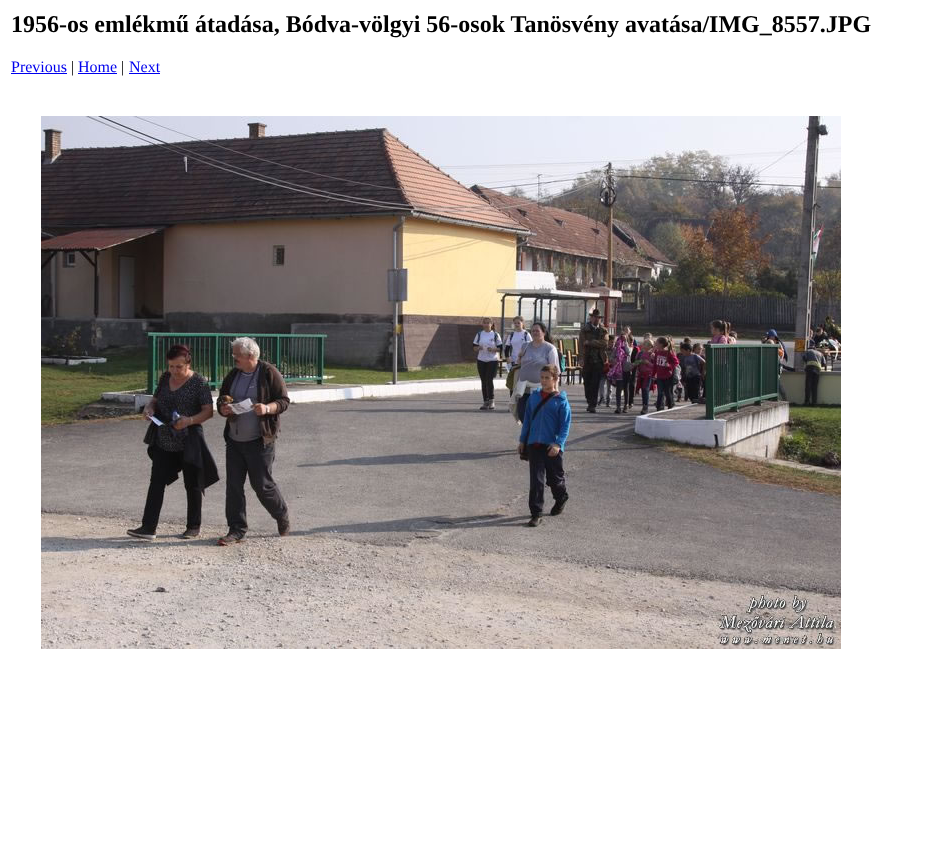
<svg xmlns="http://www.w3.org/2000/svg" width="929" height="857">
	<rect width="100%" height="100%" fill="#FFFFFF" />
	<text x="11" y="32" font-family="Liberation Serif" font-size="24" font-weight="700" fill="#000000">1956-os emlékmű átadása, Bódva-völgyi 56-osok Tanösvény avatása/IMG_8557.JPG</text>
	<text x="11" y="72" font-family="Liberation Serif" font-size="16" fill="#0000EE">Previous</text>
	<rect x="11" y="73" width="56" height="1" fill="#0000EE" />
	<text x="71" y="72" font-family="Liberation Serif" font-size="16" fill="#000000">|</text>
	<text x="78" y="72" font-family="Liberation Serif" font-size="16" fill="#0000EE">Home</text>
	<rect x="78" y="73" width="39" height="1" fill="#0000EE" />
	<text x="121" y="72" font-family="Liberation Serif" font-size="16" fill="#000000">|</text>
	<text x="129" y="72" font-family="Liberation Serif" font-size="16" fill="#0000EE">Next</text>
	<rect x="129" y="73" width="31" height="1" fill="#0000EE" />
	<image x="41" y="116" width="800" height="533" href="assets/img1.png" />
</svg>
